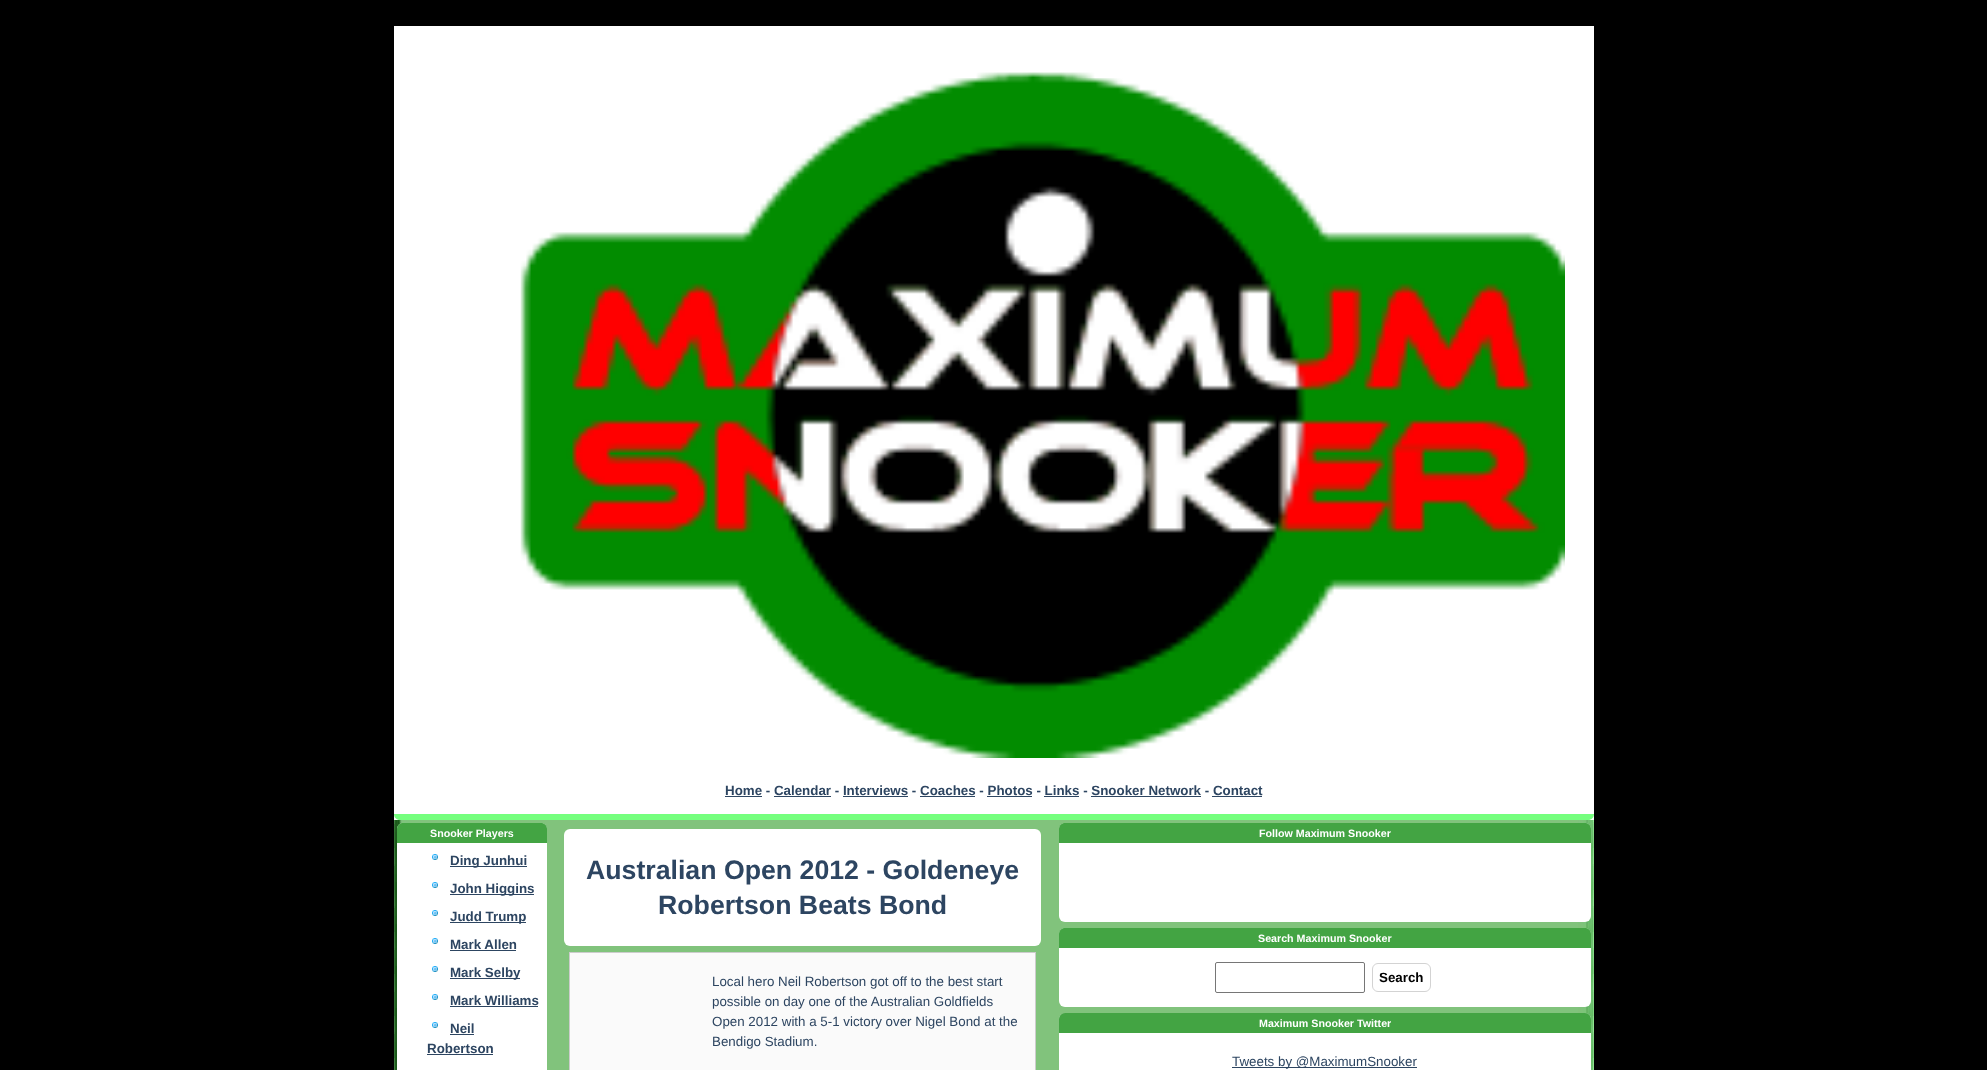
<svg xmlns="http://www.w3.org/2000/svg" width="1987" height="1070">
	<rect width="100%" height="100%" fill="#000000" />
	<image x="394" y="820" width="1200" height="250" href="assets/img1.png" />
	<rect x="394" y="26" width="1200" height="794" fill="#FFFFFF" />
	<image x="520" y="72" width="1045" height="686" href="assets/img2.png" />
	<text x="725" y="795" font-family="Liberation Sans" font-size="13.35" font-weight="700" fill="#2D4561">Home - Calendar - Interviews - Coaches - Photos - Links - Snooker Network - Contact</text>
	<rect x="725" y="796" width="37" height="1" fill="#2D4561" />
	<rect x="774" y="796" width="57" height="1" fill="#2D4561" />
	<rect x="843" y="796" width="65" height="1" fill="#2D4561" />
	<rect x="920" y="796" width="55" height="1" fill="#2D4561" />
	<rect x="987" y="796" width="45" height="1" fill="#2D4561" />
	<rect x="1044" y="796" width="35" height="1" fill="#2D4561" />
	<rect x="1091" y="796" width="110" height="1" fill="#2D4561" />
	<rect x="1212" y="796" width="50" height="1" fill="#2D4561" />
	<path d="M394 814H1594C1594 817.5 1591.5 820 1588 820H400C396.5 820 394 817.5 394 814Z" fill="#75FF7E" />
	<rect x="397" y="823" width="150" height="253" rx="6" fill="#FFFFFF" />
	<path d="M403 823H541C544.5 823 547 825.5 547 829V843H397V829C397 825.5 399.5 823 403 823Z" fill="#43A443" />
	<text x="430" y="837" font-family="Liberation Sans" font-size="10.7" font-weight="700" fill="#FFFFFF">Snooker Players</text>
	<image x="432" y="854" width="6" height="6" href="assets/img3.png" />
	<rect x="450" y="866" width="77" height="1" fill="#2D4561" />
	<text x="450" y="865" font-family="Liberation Sans" font-size="13.35" font-weight="700" fill="#2D4561">Ding Junhui</text>
	<image x="432" y="882" width="6" height="6" href="assets/img3.png" />
	<rect x="450" y="894" width="84" height="1" fill="#2D4561" />
	<text x="450" y="893" font-family="Liberation Sans" font-size="13.35" font-weight="700" fill="#2D4561">John Higgins</text>
	<image x="432" y="910" width="6" height="6" href="assets/img3.png" />
	<rect x="450" y="922" width="76" height="1" fill="#2D4561" />
	<text x="450" y="921" font-family="Liberation Sans" font-size="13.35" font-weight="700" fill="#2D4561">Judd Trump</text>
	<image x="432" y="938" width="6" height="6" href="assets/img3.png" />
	<text x="450" y="949" font-family="Liberation Sans" font-size="13.35" font-weight="700" fill="#2D4561">Mark Allen</text>
	<rect x="450" y="950" width="66" height="1" fill="#2D4561" />
	<image x="432" y="966" width="6" height="6" href="assets/img3.png" />
	<rect x="450" y="978" width="70" height="1" fill="#2D4561" />
	<text x="450" y="977" font-family="Liberation Sans" font-size="13.35" font-weight="700" fill="#2D4561">Mark Selby</text>
	<image x="432" y="994" width="6" height="6" href="assets/img3.png" />
	<text x="450" y="1005" font-family="Liberation Sans" font-size="13.35" font-weight="700" fill="#2D4561">Mark Williams</text>
	<rect x="450" y="1006" width="88" height="1" fill="#2D4561" />
	<image x="432" y="1022" width="6" height="6" href="assets/img3.png" />
	<text x="450" y="1033" font-family="Liberation Sans" font-size="13.35" font-weight="700" fill="#2D4561">Neil</text>
	<rect x="450" y="1034" width="24" height="1" fill="#2D4561" />
	<text x="427" y="1053" font-family="Liberation Sans" font-size="13.35" font-weight="700" fill="#2D4561">Robertson</text>
	<rect x="427" y="1054" width="66" height="1" fill="#2D4561" />
	<rect x="564" y="829" width="477" height="117" rx="6" fill="#FFFFFF" />
	<g font-family="Liberation Sans" font-size="26.7" font-weight="700" fill="#2D4561">
		<text x="586" y="879">Australian Open 2012 - Goldeneye</text>
		<text x="658" y="914">Robertson Beats Bond</text>
	</g>
	<rect x="569" y="952" width="467" height="1" fill="#CCCCCC" />
	<rect x="1035" y="952" width="1" height="118" fill="#CCCCCC" />
	<rect x="569" y="952" width="1" height="118" fill="#CCCCCC" />
	<rect x="570" y="953" width="465" height="117" fill="#FAFAFA" />
	<g font-family="Liberation Sans" font-size="13.35" fill="#2D4561">
		<text x="712" y="986">Local hero Neil Robertson got off to the best start</text>
		<text x="712" y="1006">possible on day one of the Australian Goldfields</text>
		<text x="712" y="1026">Open 2012 with a 5-1 victory over Nigel Bond at the</text>
		<text x="712" y="1046">Bendigo Stadium.</text>
	</g>
	<rect x="1059" y="823" width="532" height="99" rx="6" fill="#FFFFFF" />
	<path d="M1065 823H1585C1588.5 823 1591 825.5 1591 829V843H1059V829C1059 825.5 1061.5 823 1065 823Z" fill="#43A443" />
	<text x="1259" y="837" font-family="Liberation Sans" font-size="10.7" font-weight="700" fill="#FFFFFF">Follow Maximum Snooker</text>
	<rect x="1059" y="928" width="532" height="79" rx="6" fill="#FFFFFF" />
	<path d="M1065 928H1585C1588.5 928 1591 930.5 1591 934V948H1059V934C1059 930.5 1061.5 928 1065 928Z" fill="#43A443" />
	<text x="1258" y="942" font-family="Liberation Sans" font-size="10.7" font-weight="700" fill="#FFFFFF">Search Maximum Snooker</text>
	<rect x="1215.5" y="962.5" width="149" height="30" rx="1.5" fill="none" stroke="#767676" />
	<rect x="1372.5" y="963.5" width="58" height="28" rx="5.5" fill="none" stroke="#D3D3D3" />
	<text x="1379" y="982" font-family="Liberation Sans" font-size="13.35" font-weight="700" fill="#000000">Search</text>
	<rect x="1059" y="1013" width="532" height="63" rx="6" fill="#FFFFFF" />
	<path d="M1065 1013H1585C1588.5 1013 1591 1015.5 1591 1019V1033H1059V1019C1059 1015.5 1061.5 1013 1065 1013Z" fill="#43A443" />
	<text x="1259" y="1027" font-family="Liberation Sans" font-size="10.7" font-weight="700" fill="#FFFFFF">Maximum Snooker Twitter</text>
	<rect x="1232" y="1067" width="185" height="1" fill="#2D4561" />
	<text x="1232" y="1066" font-family="Liberation Sans" font-size="13.35" fill="#2D4561">Tweets by @MaximumSnooker</text>
</svg>
